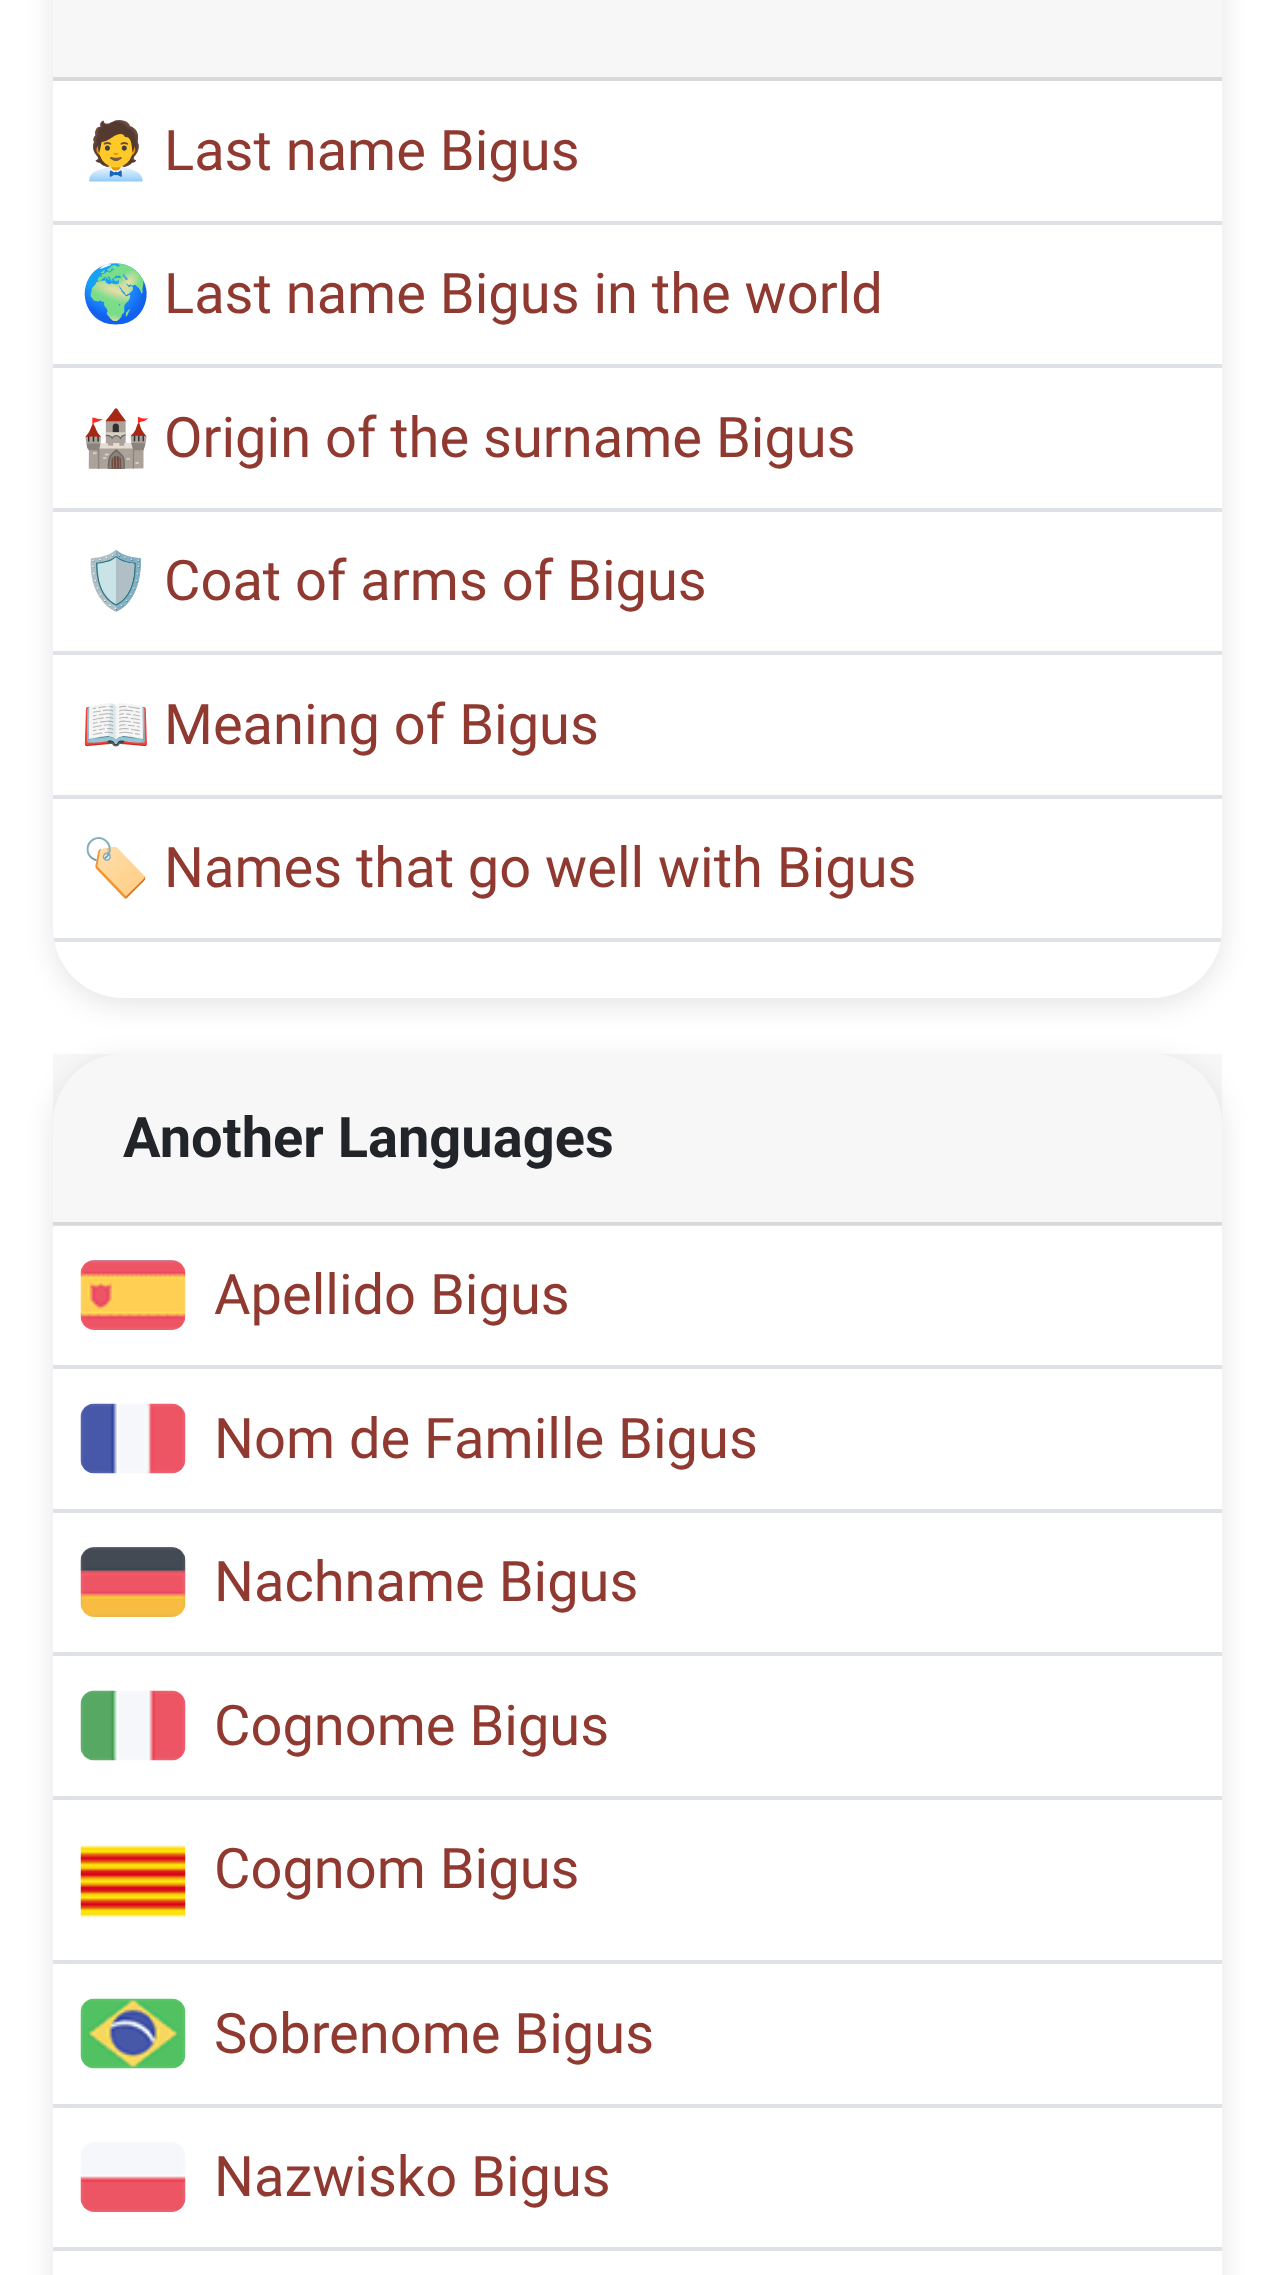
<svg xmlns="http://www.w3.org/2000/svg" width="1274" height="2275">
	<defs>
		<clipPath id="clip1"><path d="M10 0H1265V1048H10ZM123-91H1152C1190.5-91 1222-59.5 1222-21V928C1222 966.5 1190.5 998 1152 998H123C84.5 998 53 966.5 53 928V-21C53-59.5 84.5-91 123-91Z" clip-rule="evenodd" /></clipPath>
		<clipPath id="clip2"><rect x="53" y="-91" width="1169" height="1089" rx="70" /></clipPath>
		<clipPath id="clip3"><path d="M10 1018H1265V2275H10ZM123 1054H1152C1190.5 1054 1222 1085.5 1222 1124V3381C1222 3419.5 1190.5 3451 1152 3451H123C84.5 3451 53 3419.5 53 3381V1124C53 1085.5 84.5 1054 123 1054Z" clip-rule="evenodd" /></clipPath>
	</defs>
	<rect width="100%" height="100%" fill="#FFFFFF" />
	<g clip-path="url(#clip1)">
		<rect x="53" y="-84" width="1169" height="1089" rx="70" fill="#000000" fill-opacity="0.1" filter="blur(14px)" />
	</g>
	<rect x="53" y="0" width="1169" height="81" fill="#000000" fill-opacity="0.03" />
	<rect x="53" y="77" width="1169" height="4" fill="#000000" fill-opacity="0.12" />
	<rect x="53" y="221" width="1169" height="4" fill="#DEE2E6" />
	<text x="81" y="170" font-family="Noto Color Emoji" font-size="56" fill="#212529">🧑‍💼</text>
	<text x="164" y="170" font-family="Roboto" font-size="56" fill="#903930">Last name Bigus</text>
	<rect x="53" y="364" width="1169" height="4" fill="#DEE2E6" />
	<text x="81" y="313" font-family="Noto Color Emoji" font-size="56" fill="#212529">🌍</text>
	<text x="164" y="313" font-family="Roboto" font-size="56" fill="#903930">Last name Bigus in the world</text>
	<rect x="53" y="508" width="1169" height="4" fill="#DEE2E6" />
	<text x="81" y="457" font-family="Noto Color Emoji" font-size="56" fill="#212529">🏰</text>
	<text x="164" y="457" font-family="Roboto" font-size="56" fill="#903930">Origin of the surname Bigus</text>
	<rect x="53" y="651" width="1169" height="4" fill="#DEE2E6" />
	<text x="81" y="600" font-family="Noto Color Emoji" font-size="56" fill="#212529">🛡️</text>
	<text x="164" y="600" font-family="Roboto" font-size="56" fill="#903930">Coat of arms of Bigus</text>
	<rect x="53" y="795" width="1169" height="4" fill="#DEE2E6" />
	<text x="81" y="744" font-family="Noto Color Emoji" font-size="56" fill="#212529">📖</text>
	<text x="164" y="744" font-family="Roboto" font-size="56" fill="#903930">Meaning of Bigus</text>
	<g clip-path="url(#clip2)">
		<rect x="53" y="938" width="1169" height="4" fill="#DEE2E6" />
	</g>
	<text x="81" y="887" font-family="Noto Color Emoji" font-size="56" fill="#212529">🏷️</text>
	<text x="164" y="887" font-family="Roboto" font-size="56" fill="#903930">Names that go well with Bigus</text>
	<g clip-path="url(#clip3)">
		<rect x="53" y="1061" width="1169" height="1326" rx="70" fill="#000000" fill-opacity="0.1" filter="blur(14px)" />
	</g>
	<rect x="53" y="1054" width="1169" height="171" fill="#000000" fill-opacity="0.03" />
	<rect x="53" y="1222" width="1169" height="4" fill="#000000" fill-opacity="0.12" />
	<text x="123" y="1157" font-family="Roboto" font-size="56" font-weight="700" fill="#212529">Another Languages</text>
	<rect x="53" y="1365" width="1169" height="4" fill="#DEE2E6" />
	<image x="80" y="1260" width="106" height="70" href="assets/img1.png" />
	<text x="214" y="1314" font-family="Roboto" font-size="56" fill="#903930">Apellido Bigus</text>
	<rect x="53" y="1509" width="1169" height="4" fill="#DEE2E6" />
	<image x="80" y="1403" width="106" height="71" href="assets/img2.png" />
	<text x="214" y="1458" font-family="Roboto" font-size="56" fill="#903930">Nom de Famille Bigus</text>
	<rect x="53" y="1652" width="1169" height="4" fill="#DEE2E6" />
	<image x="80" y="1547" width="106" height="70" href="assets/img3.png" />
	<text x="214" y="1601" font-family="Roboto" font-size="56" fill="#903930">Nachname Bigus</text>
	<rect x="53" y="1796" width="1169" height="4" fill="#DEE2E6" />
	<image x="80" y="1690" width="106" height="71" href="assets/img4.png" />
	<text x="214" y="1745" font-family="Roboto" font-size="56" fill="#903930">Cognome Bigus</text>
	<rect x="53" y="1960" width="1169" height="4" fill="#DEE2E6" />
	<image x="80" y="1845" width="106" height="72" href="assets/img5.png" />
	<text x="214" y="1888" font-family="Roboto" font-size="56" fill="#903930">Cognom Bigus</text>
	<rect x="53" y="2104" width="1169" height="4" fill="#DEE2E6" />
	<image x="80" y="1998" width="106" height="71" href="assets/img6.png" />
	<text x="214" y="2053" font-family="Roboto" font-size="56" fill="#903930">Sobrenome Bigus</text>
	<rect x="53" y="2247" width="1169" height="4" fill="#DEE2E6" />
	<image x="80" y="2142" width="106" height="70" href="assets/img7.png" />
	<text x="214" y="2196" font-family="Roboto" font-size="56" fill="#903930">Nazwisko Bigus</text>
</svg>
